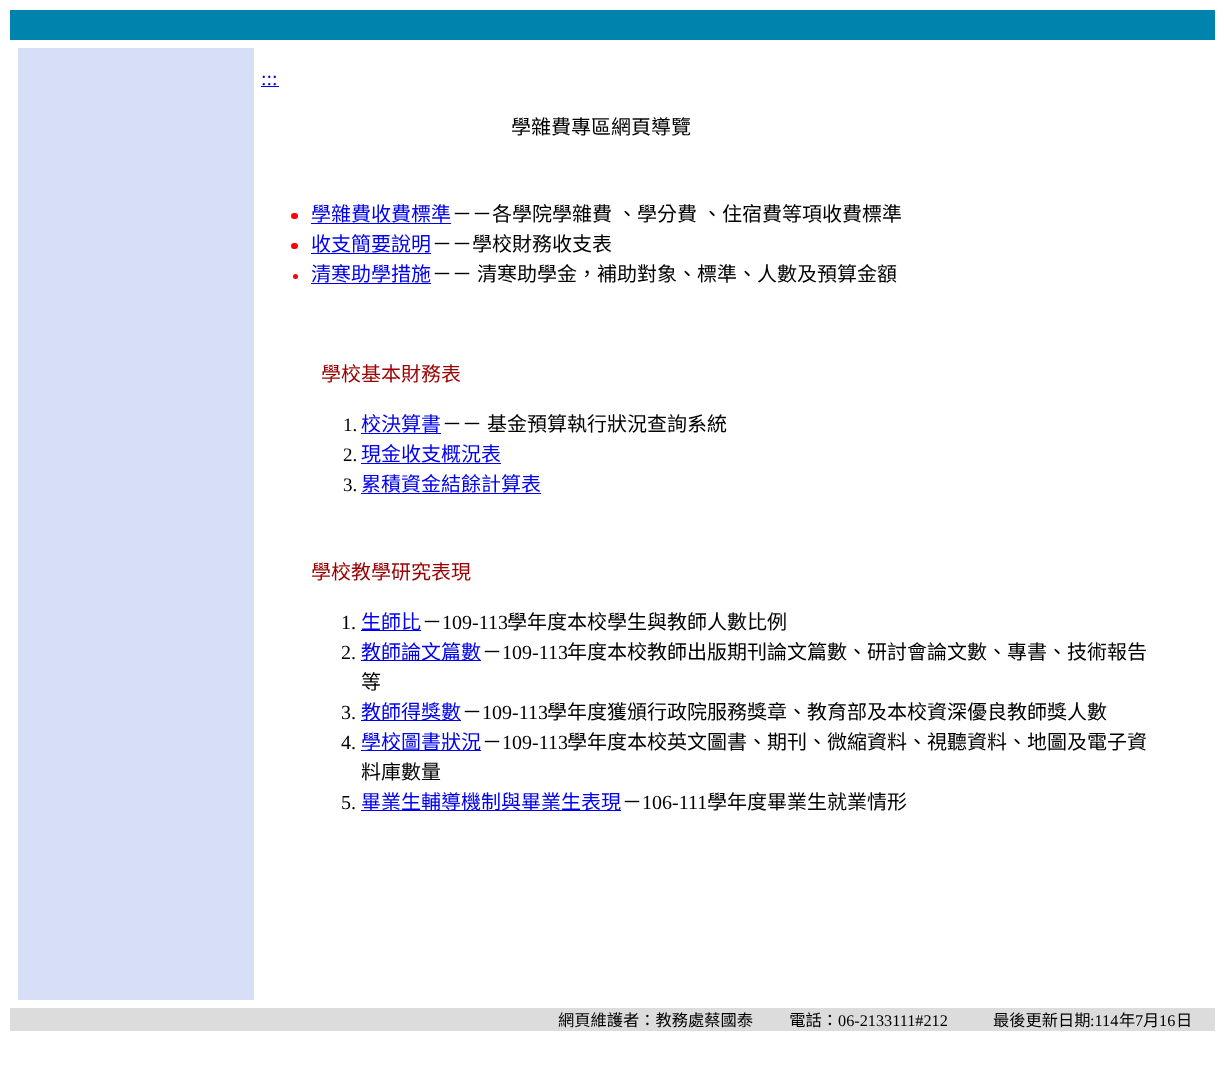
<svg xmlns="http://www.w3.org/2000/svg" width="1224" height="1069">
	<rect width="100%" height="100%" fill="#FFFFFF" />
	<rect x="10" y="10" width="1205" height="30" fill="#0084AD" />
	<rect x="18" y="48" width="236" height="952" fill="#D7DFF7" />
	<text x="261" y="85" font-family="Liberation Serif" font-size="20" fill="#0000EE">:::</text>
	<rect x="261" y="86" width="18" height="1" fill="#0000EE" />
	<text x="511" y="134" font-family="Noto Sans CJK TC" font-size="20" fill="#000000">學雜費專區網頁導覽</text>
	<rect x="291" y="213" width="7" height="6" rx="3" fill="#FF0000" />
	<text x="311" y="221" font-family="Noto Sans CJK TC" font-size="20" fill="#0000EE">學雜費收費標準</text>
	<rect x="311" y="223" width="140" height="1" fill="#0000EE" />
	<g font-family="Noto Sans CJK TC" font-size="20" fill="#000000">
		<text x="452" y="221">－－各學院學雜費</text>
		<text x="617" y="221">、學分費</text>
		<text x="702" y="221">、住宿費等項收費標準</text>
	</g>
	<rect x="291" y="243" width="7" height="6" rx="3" fill="#FF0000" />
	<text x="311" y="251" font-family="Noto Sans CJK TC" font-size="20" fill="#0000EE">收支簡要說明</text>
	<rect x="311" y="253" width="120" height="1" fill="#0000EE" />
	<text x="432" y="251" font-family="Noto Sans CJK TC" font-size="20" fill="#000000">－－學校財務收支表</text>
	<circle cx="295.5" cy="276.5" r="2.5" fill="#FF0000" />
	<text x="311" y="281" font-family="Noto Sans CJK TC" font-size="20" fill="#0000EE">清寒助學措施</text>
	<rect x="311" y="283" width="120" height="1" fill="#0000EE" />
	<g font-family="Noto Sans CJK TC" font-size="20" fill="#000000">
		<text x="432" y="281">－－</text>
		<text x="477" y="281">清寒助學金，補助對象、標準、人數及預算金額</text>
	</g>
	<text x="321" y="381" font-family="Noto Sans CJK TC" font-size="20" fill="#990000">學校基本財務表</text>
	<text x="343" y="431" font-family="Liberation Serif" font-size="19" fill="#000000">1.</text>
	<text x="361" y="431" font-family="Noto Sans CJK TC" font-size="20" fill="#0000EE">校決算書</text>
	<rect x="361" y="433" width="80" height="1" fill="#0000EE" />
	<g font-family="Noto Sans CJK TC" font-size="20" fill="#000000">
		<text x="442" y="431">－－</text>
		<text x="487" y="431">基金預算執行狀況查詢系統</text>
	</g>
	<text x="343" y="461" font-family="Liberation Serif" font-size="19" fill="#000000">2.</text>
	<text x="361" y="461" font-family="Noto Sans CJK TC" font-size="20" fill="#0000EE">現金收支概況表</text>
	<rect x="361" y="463" width="140" height="1" fill="#0000EE" />
	<text x="343" y="491" font-family="Liberation Serif" font-size="19" fill="#000000">3.</text>
	<text x="361" y="491" font-family="Noto Sans CJK TC" font-size="20" fill="#0000EE">累積資金結餘計算表</text>
	<rect x="361" y="493" width="180" height="1" fill="#0000EE" />
	<text x="311" y="579" font-family="Noto Sans CJK TC" font-size="20" fill="#990000">學校教學研究表現</text>
	<text x="341" y="629" font-family="Liberation Serif" font-size="20" fill="#000000">1.</text>
	<rect x="361" y="630" width="60" height="1" fill="#0000EE" />
	<text x="361" y="629" font-family="Noto Sans CJK TC" font-size="20" fill="#0000EE">生師比</text>
	<text x="422" y="629" font-family="Noto Sans CJK TC" font-size="20" fill="#000000">－</text>
	<text x="442" y="629" font-family="Liberation Serif" font-size="20" fill="#000000">109-113</text>
	<text x="507" y="629" font-family="Noto Sans CJK TC" font-size="20" fill="#000000">學年度本校學生與教師人數比例</text>
	<text x="341" y="659" font-family="Liberation Serif" font-size="20" fill="#000000">2.</text>
	<rect x="361" y="660" width="120" height="1" fill="#0000EE" />
	<text x="361" y="659" font-family="Noto Sans CJK TC" font-size="20" fill="#0000EE">教師論文篇數</text>
	<text x="482" y="659" font-family="Noto Sans CJK TC" font-size="20" fill="#000000">－</text>
	<text x="502" y="659" font-family="Liberation Serif" font-size="20" fill="#000000">109-113</text>
	<g font-family="Noto Sans CJK TC" font-size="20" fill="#000000">
		<text x="567" y="659">年度本校教師出版期刊論文篇數、研討會論文數、專書、技術報告</text>
		<text x="361" y="689">等</text>
	</g>
	<text x="341" y="719" font-family="Liberation Serif" font-size="20" fill="#000000">3.</text>
	<rect x="361" y="720" width="100" height="1" fill="#0000EE" />
	<text x="361" y="719" font-family="Noto Sans CJK TC" font-size="20" fill="#0000EE">教師得獎數</text>
	<text x="462" y="719" font-family="Noto Sans CJK TC" font-size="20" fill="#000000">－</text>
	<text x="482" y="719" font-family="Liberation Serif" font-size="20" fill="#000000">109-113</text>
	<text x="547" y="719" font-family="Noto Sans CJK TC" font-size="20" fill="#000000">學年度獲頒行政院服務獎章、教育部及本校資深優良教師獎人數</text>
	<text x="341" y="749" font-family="Liberation Serif" font-size="20" fill="#000000">4.</text>
	<rect x="361" y="750" width="120" height="1" fill="#0000EE" />
	<text x="361" y="749" font-family="Noto Sans CJK TC" font-size="20" fill="#0000EE">學校圖書狀況</text>
	<text x="482" y="749" font-family="Noto Sans CJK TC" font-size="20" fill="#000000">－</text>
	<text x="502" y="749" font-family="Liberation Serif" font-size="20" fill="#000000">109-113</text>
	<g font-family="Noto Sans CJK TC" font-size="20" fill="#000000">
		<text x="567" y="749">學年度本校英文圖書、期刊、微縮資料、視聽資料、地圖及電子資</text>
		<text x="361" y="779">料庫數量</text>
	</g>
	<text x="341" y="809" font-family="Liberation Serif" font-size="20" fill="#000000">5.</text>
	<rect x="361" y="810" width="260" height="1" fill="#0000EE" />
	<text x="361" y="809" font-family="Noto Sans CJK TC" font-size="20" fill="#0000EE">畢業生輔導機制與畢業生表現</text>
	<text x="622" y="809" font-family="Noto Sans CJK TC" font-size="20" fill="#000000">－</text>
	<text x="642" y="809" font-family="Liberation Serif" font-size="20" fill="#000000">106-111</text>
	<text x="707" y="809" font-family="Noto Sans CJK TC" font-size="20" fill="#000000">學年度畢業生就業情形</text>
	<rect x="10" y="1008" width="1205" height="23" fill="#DCDCDC" />
	<text x="558" y="1026" font-family="Noto Sans CJK TC" font-size="16.25" fill="#000000">網頁維護者：教務處蔡國泰 　　電話：</text>
	<text x="838" y="1026" font-family="Liberation Serif" font-size="16.25" fill="#000000">06-2133111#212</text>
	<text x="993" y="1026" font-family="Noto Sans CJK TC" font-size="16.25" fill="#000000">最後更新日期</text>
	<text x="1090" y="1026" font-family="Liberation Serif" font-size="16.25" fill="#000000">:114</text>
	<text x="1119" y="1026" font-family="Noto Sans CJK TC" font-size="16.25" fill="#000000">年</text>
	<text x="1135" y="1026" font-family="Liberation Serif" font-size="16.25" fill="#000000">7</text>
	<text x="1143" y="1026" font-family="Noto Sans CJK TC" font-size="16.25" fill="#000000">月</text>
	<text x="1159" y="1026" font-family="Liberation Serif" font-size="16.25" fill="#000000">16</text>
	<text x="1176" y="1026" font-family="Noto Sans CJK TC" font-size="16.25" fill="#000000">日</text>
</svg>
